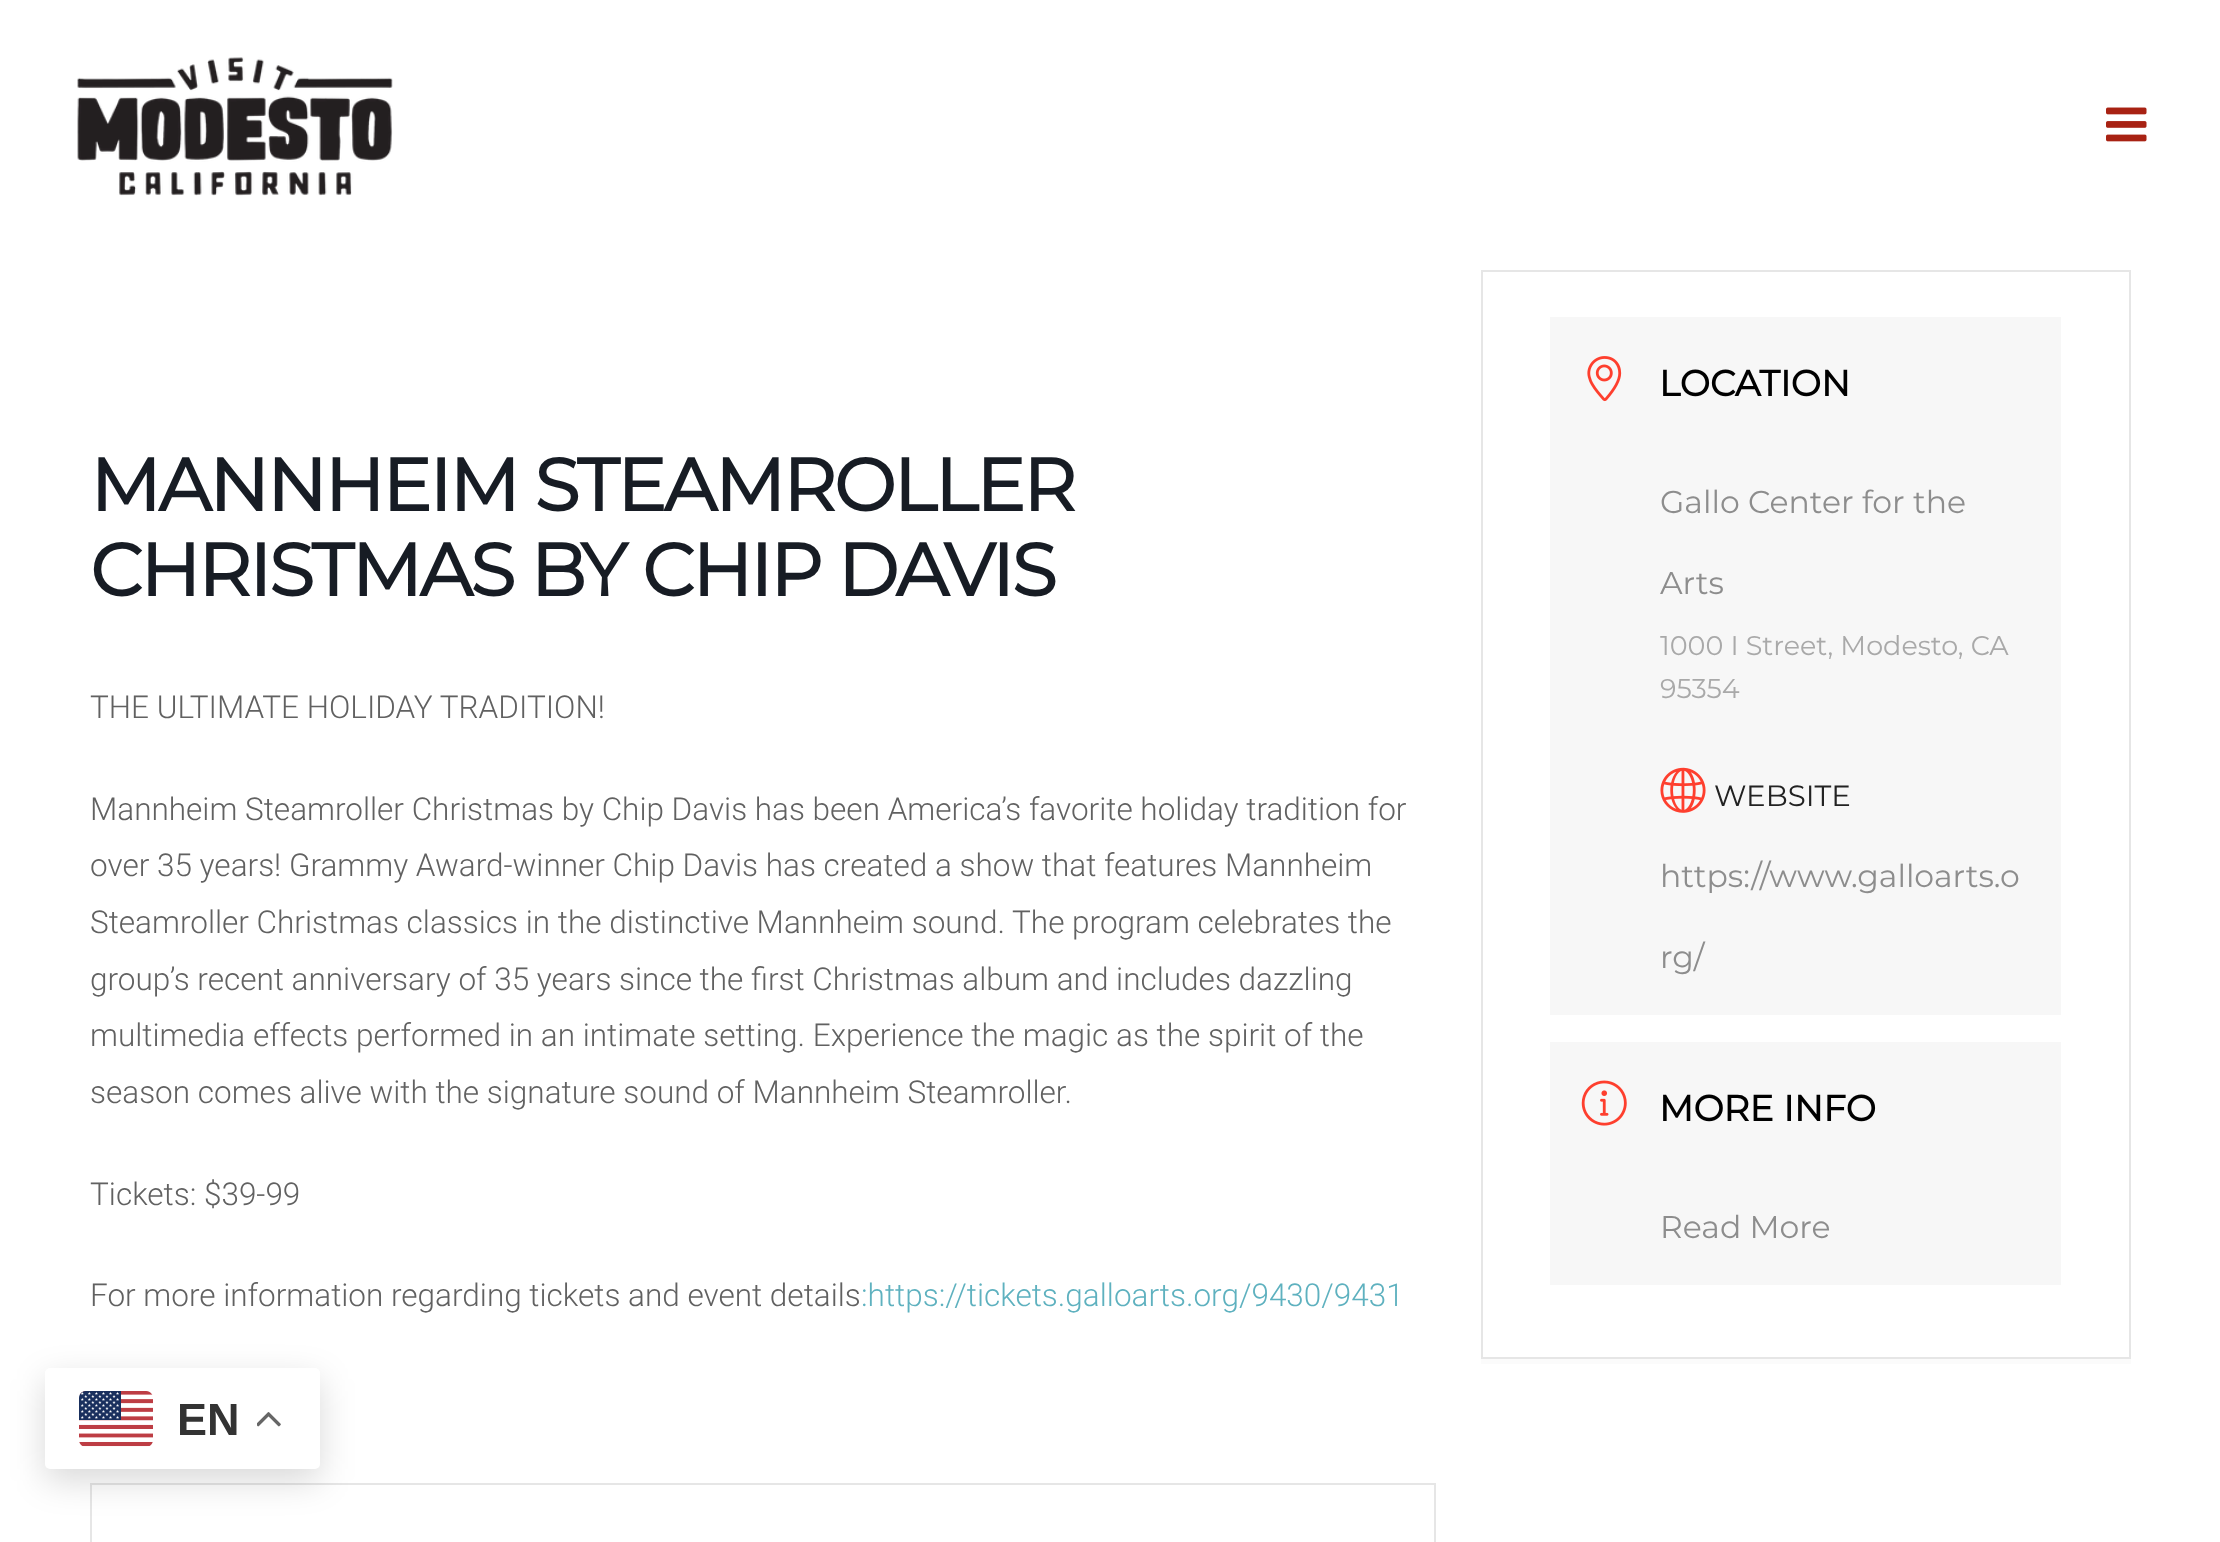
<svg xmlns="http://www.w3.org/2000/svg" width="2220" height="1542">
	<rect width="100%" height="100%" fill="#FFFFFF" />
	<image x="77" y="57" width="316" height="139" href="assets/img1.png" />
	<image x="2106" y="107" width="41" height="35" href="assets/img2.png" />
	<g font-family="Montserrat" font-size="73.75" font-weight="700" letter-spacing="-2.25" fill="#171C24">
		<text x="90" y="511">MANNHEIM STEAMROLLER</text>
		<text x="90" y="596">CHRISTMAS BY CHIP DAVIS</text>
	</g>
	<g font-family="Roboto" font-size="31.5" font-weight="300" fill="#616161">
		<text x="90" y="718">THE ULTIMATE HOLIDAY TRADITION!</text>
		<text x="90" y="820">Mannheim Steamroller Christmas by Chip Davis has been America’s favorite holiday tradition for</text>
		<text x="90" y="876">over 35 years! Grammy Award-winner Chip Davis has created a show that features Mannheim</text>
		<text x="90" y="933">Steamroller Christmas classics in the distinctive Mannheim sound. The program celebrates the</text>
		<text x="90" y="990">group’s recent anniversary of 35 years since the first Christmas album and includes dazzling</text>
		<text x="90" y="1046">multimedia effects performed in an intimate setting. Experience the magic as the spirit of the</text>
		<text x="90" y="1103">season comes alive with the signature sound of Mannheim Steamroller.</text>
		<text x="90" y="1205">Tickets: $39-99</text>
		<text x="90" y="1306">For more information regarding tickets and event details</text>
	</g>
	<text x="861" y="1306" font-family="Roboto" font-size="31.5" font-weight="300" fill="#5EB1BF">:https://tickets.galloarts.org/9430/9431</text>
	<rect x="91" y="1484" width="1344" height="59" fill="none" stroke="#E6E6E6" stroke-width="2" />
	<path d="M1481 1359V1364H2131V275V1359Z" fill="#FBFBFB" />
	<rect x="1482" y="271" width="648" height="1087" fill="none" stroke="#E6E6E6" stroke-width="2" />
	<rect x="1550" y="317" width="511" height="698" fill="#F7F7F7" />
	<image x="1587" y="356" width="35" height="46" href="assets/img3.png" />
	<text x="1659" y="396" font-family="Montserrat" font-size="36" font-weight="700" fill="#000000">LOCATION</text>
	<g font-family="Montserrat" font-size="31.5" font-weight="100" fill="#8D8D8D">
		<text x="1660" y="513">Gallo Center for the</text>
		<text x="1660" y="594">Arts</text>
	</g>
	<g font-family="Montserrat" font-size="27" font-weight="100" fill="#A9A9A9">
		<text x="1660" y="655">1000 I Street, Modesto, CA</text>
		<text x="1660" y="698">95354</text>
	</g>
	<image x="1660" y="767" width="46" height="46" href="assets/img4.png" />
	<text x="1714" y="806" font-family="Montserrat" font-size="29.25" font-weight="100" fill="#222222">WEBSITE</text>
	<g font-family="Montserrat" font-size="31.5" font-weight="100" fill="#8D8D8D">
		<text x="1660" y="887">https://www.galloarts.o</text>
		<text x="1660" y="968">rg/</text>
	</g>
	<rect x="1550" y="1042" width="511" height="243" fill="#F7F7F7" />
	<image x="1581" y="1080" width="46" height="46" href="assets/img5.png" />
	<text x="1659" y="1121" font-family="Montserrat" font-size="36" font-weight="700" fill="#000000">MORE INFO</text>
	<text x="1660" y="1238" font-family="Montserrat" font-size="31.5" font-weight="100" fill="#8D8D8D">Read More</text>
	<rect x="45" y="1379" width="275" height="102" rx="5" fill="#000000" fill-opacity="0.15" filter="blur(17px)" />
	<rect x="45" y="1368" width="275" height="101" rx="5" fill="#FFFFFF" />
	<image x="79" y="1391" width="74" height="56" href="assets/img6.png" />
	<text x="177" y="1435" font-family="Liberation Sans" font-size="45" font-weight="700" fill="#333333">EN</text>
	<image x="257" y="1412" width="24" height="15" href="assets/img7.png" />
</svg>
